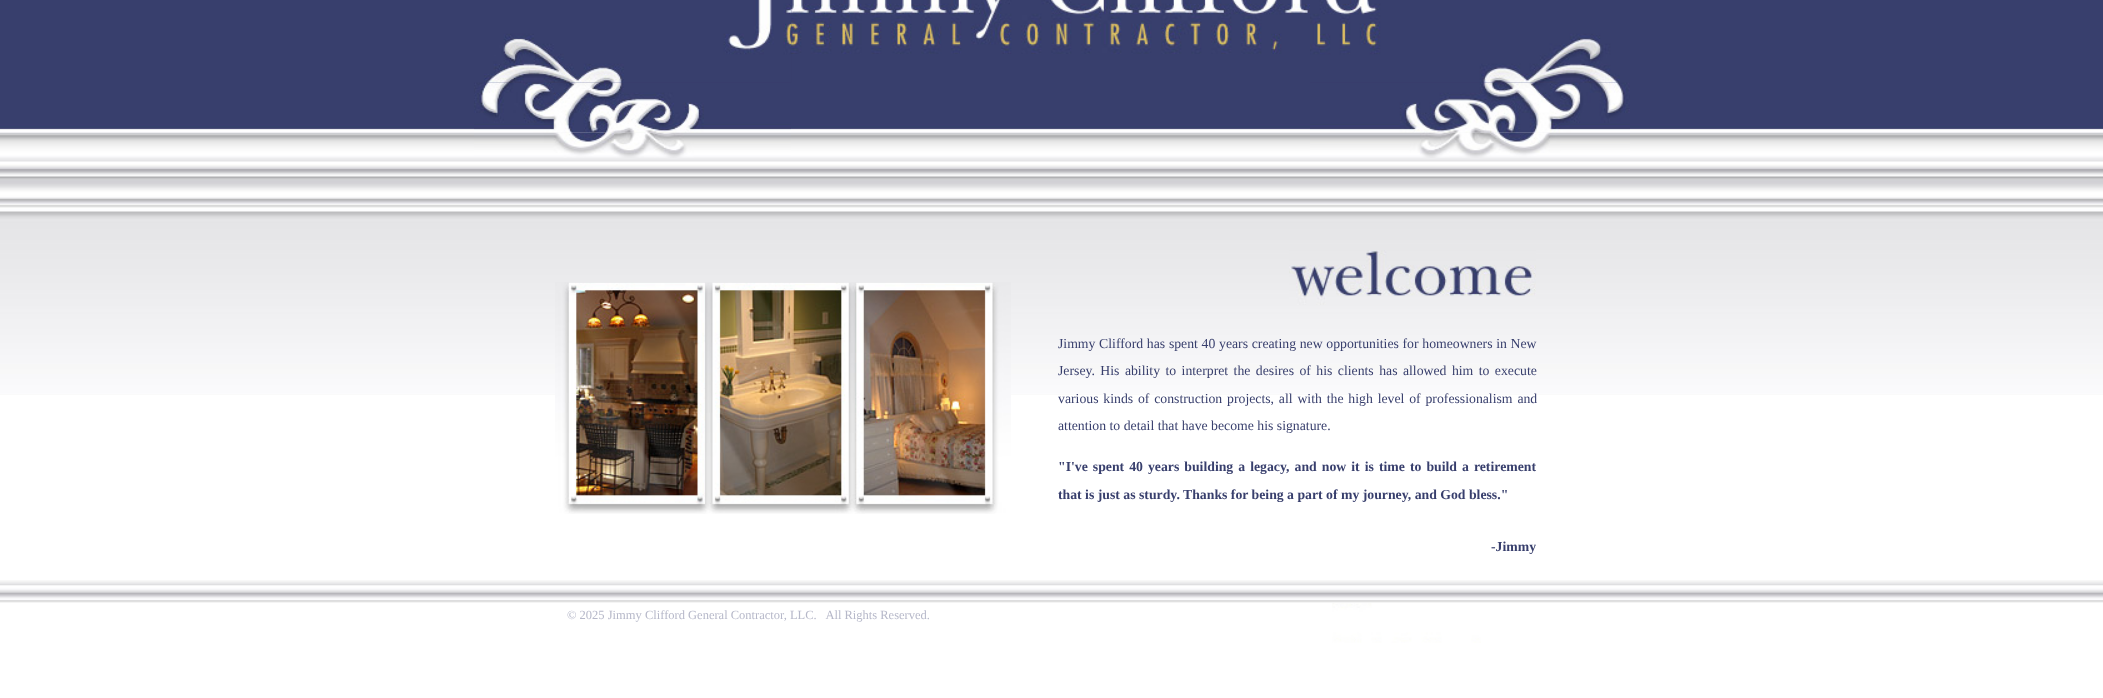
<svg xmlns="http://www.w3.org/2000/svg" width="2103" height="698">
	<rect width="100%" height="100%" fill="#FFFFFF" />
	<image x="0" y="0" width="2103" height="395" href="assets/img1.png" />
	<image x="484" y="0" width="308" height="83" href="assets/img2.png" />
	<image x="791" y="0" width="519" height="54" href="assets/img3.png" />
	<image x="1310" y="0" width="310" height="83" href="assets/img4.png" />
	<image x="474" y="82" width="317" height="51" href="assets/img5.png" />
	<image x="1310" y="82" width="320" height="51" href="assets/img6.png" />
	<image x="474" y="132" width="317" height="26" href="assets/img7.png" />
	<image x="1310" y="132" width="320" height="26" href="assets/img8.png" />
	<image x="555" y="282" width="456" height="232" href="assets/img9.png" />
	<image x="1289" y="250" width="247" height="55" href="assets/img10.png" />
	<g font-family="Liberation Serif" font-size="13.75" fill="#383F6D">
		<text x="1058" y="348" word-spacing="0.25">Jimmy Clifford has spent 40 years creating new opportunities for homeowners in New</text>
		<text x="1058" y="375" word-spacing="2">Jersey. His ability to interpret the desires of his clients has allowed him to execute</text>
		<text x="1058" y="403" word-spacing="1.4">various kinds of construction projects, all with the high level of professionalism and</text>
		<text x="1058" y="430">attention to detail that have become his signature.</text>
	</g>
	<g font-family="Liberation Serif" font-size="13.75" font-weight="700" fill="#383F6D">
		<text x="1058" y="471" word-spacing="1.6">"I've spent 40 years building a legacy, and now it is time to build a retirement</text>
		<text x="1058" y="499">that is just as sturdy. Thanks for being a part of my journey, and God bless."</text>
		<text x="1491" y="551">-Jimmy</text>
	</g>
	<image x="0" y="580" width="2103" height="23" href="assets/img11.png" />
	<text x="567" y="619" font-family="Liberation Serif" font-size="12.5" fill="#B6B8C9" xml:space="preserve">© 2025 Jimmy Clifford General Contractor, LLC.   All Rights Reserved.</text>
	<image x="1332" y="603" width="149" height="40" href="assets/img12.png" />
</svg>
